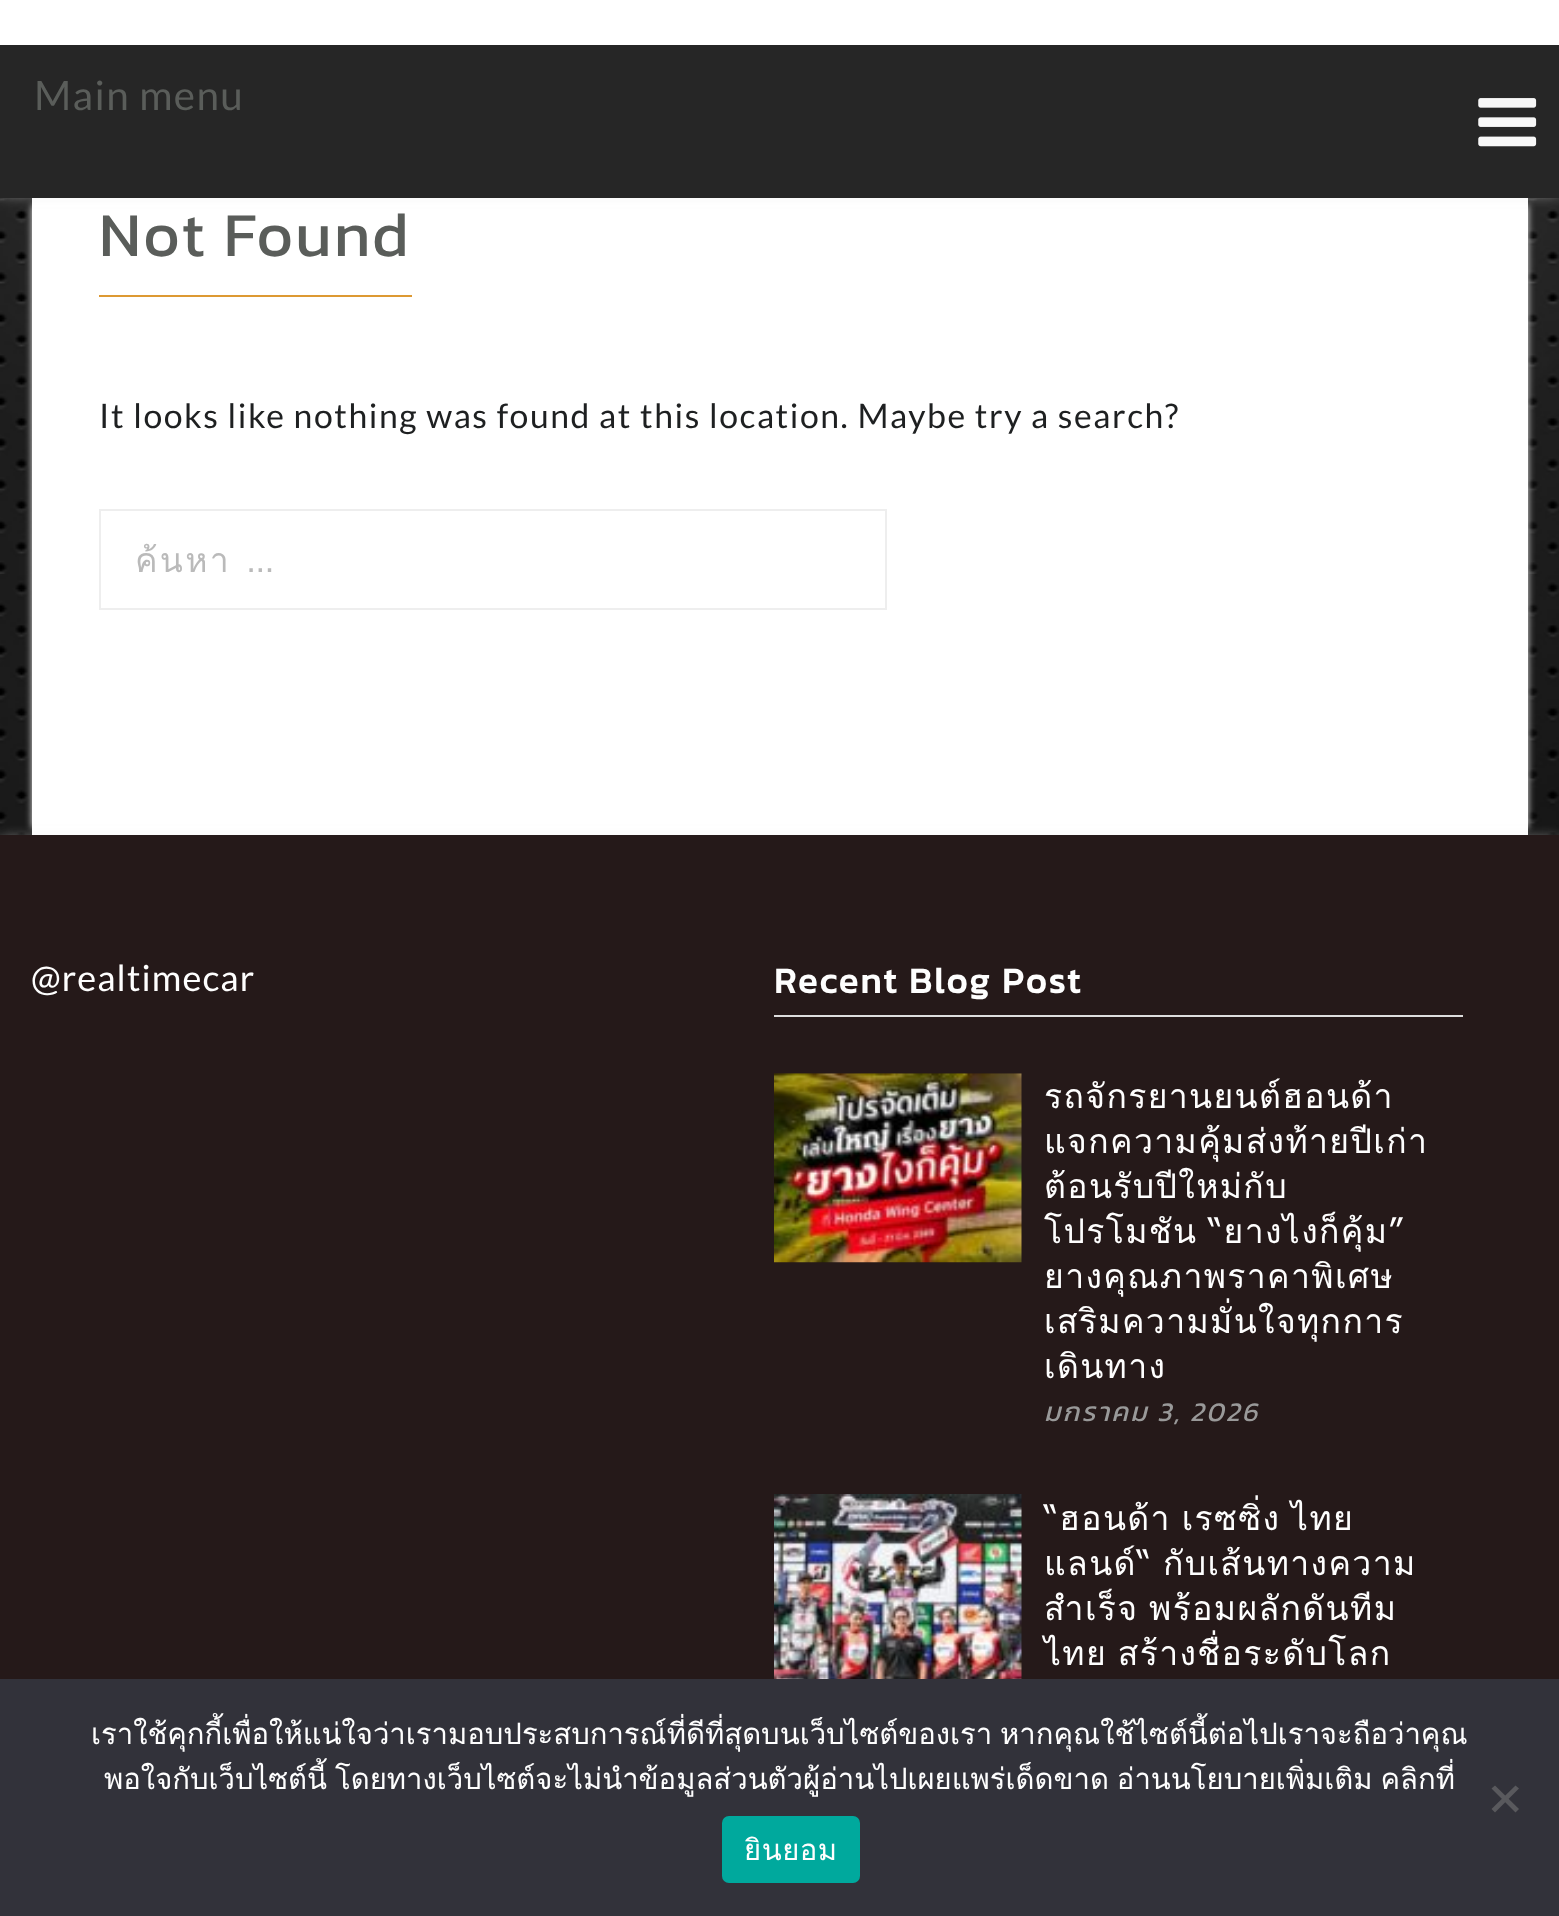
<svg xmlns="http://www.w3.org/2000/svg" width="1559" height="1916">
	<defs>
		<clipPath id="clip1"><rect x="135" y="533" width="695" height="54" /></clipPath>
	</defs>
	<rect width="100%" height="100%" fill="#FFFFFF" />
	<image x="0" y="198" width="1559" height="637" href="assets/img1.png" />
	<rect x="32" y="205" width="1482" height="623" fill="#E6E6E6" filter="blur(3.5px)" />
	<rect x="45" y="205" width="1483" height="623" fill="#E6E6E6" filter="blur(3.5px)" />
	<rect x="32" y="198" width="1496" height="637" fill="#FFFFFF" />
	<rect x="0" y="-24" width="1559" height="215" fill="#E6E6E6" filter="blur(8px)" />
	<rect x="0" y="0" width="1559" height="45" fill="#FFFFFF" />
	<rect x="0" y="45" width="1559" height="153" fill="#262626" />
	<text x="34" y="110" font-family="Lato" font-size="40.5" letter-spacing="1.35" fill="#5A5D5A">Main menu</text>
	<image x="1478" y="98" width="59" height="49" href="assets/img2.png" />
	<rect x="99" y="295" width="313" height="2" fill="#DD9933" />
	<text x="99" y="256" font-family="Kanit" font-size="63" letter-spacing="2.25" fill="#5A5D5A">Not Found</text>
	<text x="99" y="428" font-family="Lato" font-size="33.75" letter-spacing="1.57" fill="#1E2021">It looks like nothing was found at this location. Maybe try a search?</text>
	<rect x="100" y="510" width="786" height="99" fill="none" stroke="#EEEEEE" stroke-width="2" />
	<g clip-path="url(#clip1)">
		<text x="135" y="572" word-spacing="2" font-family="Loma" font-size="33.75" letter-spacing="2.25" fill="#BABABA">ค้นหา …</text>
	</g>
	<rect x="0" y="842" width="1559" height="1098" fill="#E6E6E6" filter="blur(8px)" />
	<rect x="0" y="835" width="1559" height="844" fill="#251919" />
	<text x="31" y="991" font-family="Lato" font-size="36" letter-spacing="1.1" fill="#FEFEFE">@realtimecar</text>
	<rect x="774" y="1015" width="689" height="2" fill="#DDDDDD" />
	<text x="774" y="993" font-family="Kanit" font-size="36" font-weight="700" letter-spacing="2.25" fill="#FEFEFE">Recent Blog Post</text>
	<image x="774" y="1073" width="248" height="190" href="assets/img3.png" />
	<g font-family="Loma" font-size="33.75" letter-spacing="1.35" fill="#FEFEFE">
		<text x="1044" y="1108">รถจักรยานยนต์ฮอนด้า</text>
		<text x="1044" y="1153">แจกความคุ้มส่งท้ายปีเก่า</text>
		<text x="1044" y="1198">ต้อนรับปีใหม่กับ</text>
		<text x="1044" y="1243" word-spacing="-2">โปรโมชัน “ยางไงก็คุ้ม”</text>
		<text x="1044" y="1288">ยางคุณภาพราคาพิเศษ</text>
		<text x="1044" y="1333">เสริมความมั่นใจทุกการ</text>
		<text x="1044" y="1378">เดินทาง</text>
	</g>
	<text x="1044" y="1421" font-family="Kanit" font-size="27" font-style="italic" letter-spacing="2.25" fill="#999999">มกราคม 3, 2026</text>
	<image x="774" y="1494" width="248" height="185" href="assets/img4.png" />
	<g font-family="Loma" font-size="33.75" letter-spacing="1.35" fill="#FEFEFE">
		<text x="1044" y="1530" word-spacing="-2">“ฮอนด้า เรซซิ่ง ไทย</text>
		<text x="1044" y="1575" word-spacing="-2">แลนด์“ กับเส้นทางความ</text>
		<text x="1044" y="1620" word-spacing="-2">สำเร็จ พร้อมผลักดันทีม</text>
		<text x="1044" y="1665" word-spacing="-2">ไทย สร้างชื่อระดับโลก</text>
	</g>
	<rect x="0" y="1679" width="1559" height="237" fill="#32323A" />
	<g font-family="Loma" font-size="29.25" fill="#FEFEFE">
		<text x="91" y="1744" word-spacing="-2">เราใช้คุกกี้เพื่อให้แน่ใจว่าเรามอบประสบการณ์ที่ดีที่สุดบนเว็บไซต์ของเรา หากคุณใช้ไซต์นี้ต่อไปเราจะถือว่าคุณ</text>
		<text x="104" y="1789" word-spacing="-2">พอใจกับเว็บไซต์นี้ โดยทางเว็บไซต์จะไม่นำข้อมูลส่วนตัวผู้อ่านไปเผยแพร่เด็ดขาด อ่านนโยบายเพิ่มเติม คลิกที่</text>
	</g>
	<path d="M1515.5 1785.5L1519 1788.5L1495 1812.5L1491.5 1809Z" fill="#59595D" />
	<path d="M1491.5 1788.5L1495 1785.5L1519 1809L1515.5 1812.5Z" fill="#59595D" />
	<rect x="722" y="1816" width="138" height="67" rx="7" fill="#00A99D" />
	<text x="744" y="1860" font-family="Loma" font-size="29.25" letter-spacing="0.5" fill="#FEFEFE">ยินยอม</text>
</svg>
